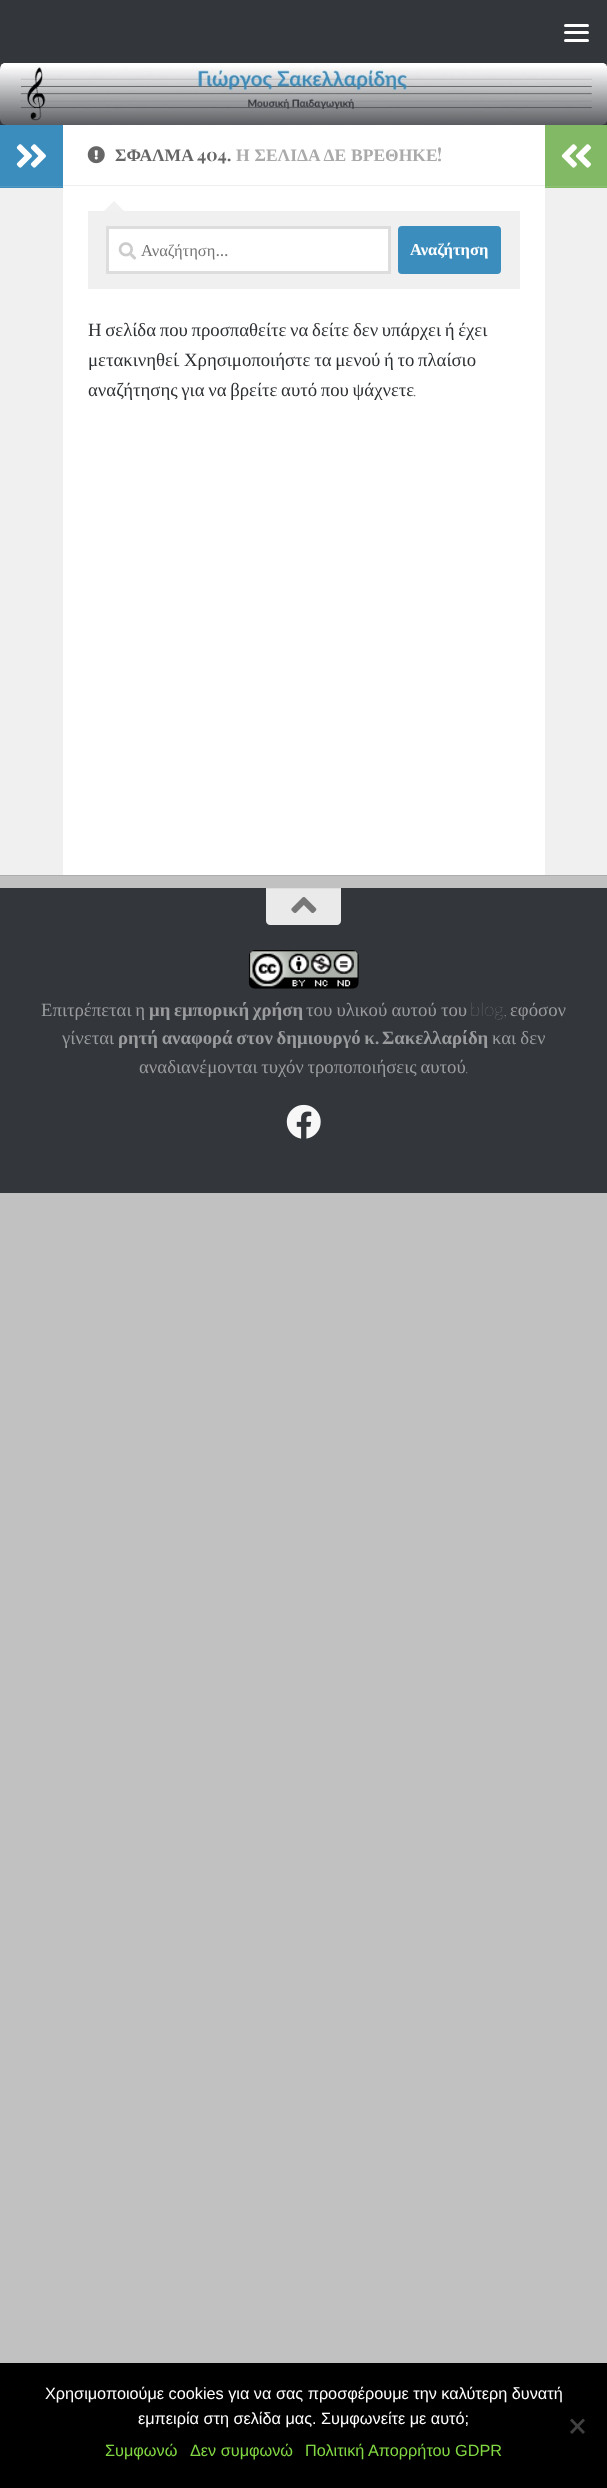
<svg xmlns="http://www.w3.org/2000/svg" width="607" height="2488">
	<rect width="100%" height="100%" fill="#C1C1C1" />
	<rect x="0" y="126" width="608" height="750" fill="#000000" fill-opacity="0.1" filter="blur(0.5px)" />
	<rect x="0" y="0" width="607" height="125" fill="#33363B" />
	<rect x="564" y="24" width="25" height="3" rx="1.5" fill="#FFFFFF" />
	<rect x="564" y="31" width="25" height="3" rx="1.5" fill="#FFFFFF" />
	<rect x="564" y="39" width="25" height="3" rx="1.5" fill="#FFFFFF" />
	<image x="0" y="63" width="607" height="62" href="assets/img1.png" />
	<rect x="63" y="125" width="482" height="750" fill="#FFFFFF" />
	<rect x="0" y="188" width="63" height="687" fill="#F0F0F0" />
	<rect x="0" y="125" width="63" height="63" fill="#3B8DBD" />
	<rect x="0" y="186" width="63" height="1" fill="#4F98C4" />
	<image x="16" y="144" width="30" height="24" href="assets/img2.png" />
	<rect x="63" y="185" width="482" height="1" fill="#EEEEEE" />
	<image x="87" y="146" width="18" height="18" href="assets/img3.png" />
	<text x="115" y="161" font-family="Liberation Serif" font-size="17.5" font-weight="700" fill="#666666">ΣΦΑΛΜΑ</text>
	<text x="197" y="161" font-family="Playfair Display" font-size="17.5" font-weight="700" fill="#666666">404.</text>
	<text x="236" y="161" word-spacing="0.5" font-family="Liberation Serif" font-size="17.5" font-weight="700" fill="#AAAAAA">Η ΣΕΛΙΔΑ ΔΕ ΒΡΕΘΗΚΕ</text>
	<text x="437" y="161" font-family="Playfair Display" font-size="17.5" font-weight="700" fill="#AAAAAA">!</text>
	<rect x="88" y="211" width="432" height="78" fill="#F0F0F0" />
	<path d="M124 211H104L114 201Z" fill="#F1F1F1" />
	<rect x="107.5" y="227.5" width="282" height="45" fill="#FFFFFF" stroke="#DDDDDD" stroke-width="3" />
	<image x="118" y="242" width="19" height="18" href="assets/img4.png" />
	<text x="141" y="256" font-family="Liberation Serif" font-size="16.5" fill="#757575">Αναζήτηση</text>
	<text x="216" y="256" font-family="Lato" font-size="16.5" fill="#757575">…</text>
	<rect x="398" y="226" width="103" height="48" rx="4" fill="#3B8DBD" />
	<text x="410" y="255" font-family="Liberation Serif" font-size="16.5" font-weight="700" fill="#FFFFFF">Αναζήτηση</text>
	<g font-family="Liberation Serif" font-size="18.75" fill="#2D3033">
		<text x="88" y="336" word-spacing="-1">Η σελίδα που προσπαθείτε να δείτε δεν υπάρχει ή έχει</text>
		<text x="88" y="366">μετακινηθεί</text>
	</g>
	<text x="177" y="366" font-family="Lato" font-size="18.75" font-weight="100" fill="#2D3033">.</text>
	<g font-family="Liberation Serif" font-size="18.75" fill="#2D3033">
		<text x="184" y="366" word-spacing="-1">Χρησιμοποιήστε τα μενού ή το πλαίσιο</text>
		<text x="88" y="396" word-spacing="-1">αναζήτησης για να βρείτε αυτό που ψάχνετε</text>
	</g>
	<text x="413" y="396" font-family="Lato" font-size="18.75" font-weight="100" fill="#2D3033">.</text>
	<rect x="545" y="125" width="62" height="63" fill="#82B965" />
	<rect x="545" y="186" width="62" height="1" fill="#8FC074" />
	<image x="561" y="144" width="30" height="24" href="assets/img5.png" />
	<rect x="545" y="188" width="62" height="687" fill="#F0F0F0" />
	<rect x="0" y="888" width="607" height="305" fill="#33363B" />
	<path d="M266 888H341V921C341 923 339 925 337 925H270C268 925 266 923 266 921Z" fill="#EAEAEA" />
	<rect x="266" y="888" width="75" height="1" fill="#DEDEDE" />
	<image x="291" y="897" width="26" height="16" href="assets/img6.png" />
	<image x="248" y="950" width="111" height="39" href="assets/img7.png" />
	<text x="41" y="1016" word-spacing="-1" font-family="Liberation Serif" font-size="18.75" fill="#999B9D">Επιτρέπεται η</text>
	<text x="149" y="1016" word-spacing="-1" font-family="Liberation Serif" font-size="18.75" font-weight="700" fill="#999B9D">μη εμπορική χρήση</text>
	<text x="306" y="1016" word-spacing="-0.5" font-family="Liberation Serif" font-size="18.75" fill="#999B9D">του υλικού αυτού του</text>
	<text x="470" y="1016" font-family="Lato" font-size="18.75" font-weight="100" fill="#999B9D">blog,</text>
	<g font-family="Liberation Serif" font-size="18.75" fill="#999B9D">
		<text x="510" y="1016">εφόσον</text>
		<text x="62" y="1044">γίνεται</text>
	</g>
	<text x="118" y="1044" word-spacing="-1" font-family="Liberation Serif" font-size="18.75" font-weight="700" fill="#999B9D">ρητή αναφορά στον δημιουργό κ</text>
	<text x="375" y="1044" font-family="Lato" font-size="18.75" font-weight="700" fill="#999B9D">.</text>
	<text x="382" y="1044" font-family="Liberation Serif" font-size="18.75" font-weight="700" fill="#999B9D">Σακελλαρίδη</text>
	<g font-family="Liberation Serif" font-size="18.75" fill="#999B9D">
		<text x="492" y="1044" word-spacing="-0.5">και δεν</text>
		<text x="139" y="1073" word-spacing="-1">αναδιανέμονται τυχόν τροποποιήσεις αυτού</text>
	</g>
	<text x="465" y="1073" font-family="Lato" font-size="18.75" font-weight="100" fill="#999B9D">.</text>
	<image x="286" y="1104" width="35" height="35" href="assets/img8.png" />
	<rect x="0" y="2363" width="607" height="125" fill="#000000" />
	<g font-family="Liberation Sans" font-size="16.25" fill="#FFFFFF">
		<text x="45" y="2399">Χρησιμοποιούμε cookies για να σας προσφέρουμε την καλύτερη δυνατή</text>
		<text x="138" y="2424">εμπειρία στη σελίδα μας. Συμφωνείτε με αυτό;</text>
	</g>
	<path d="M583 2418.5L585 2420.5L572 2434L570 2432Z" fill="#404040" />
	<path d="M570 2420.5L572 2418.5L585 2432L583 2434Z" fill="#404040" />
	<g font-family="Liberation Sans" font-size="16.25" fill="#81D742">
		<text x="105" y="2456">Συμφωνώ</text>
		<text x="190" y="2456">Δεν συμφωνώ</text>
		<text x="305" y="2456">Πολιτική Απορρήτου GDPR</text>
	</g>
</svg>
